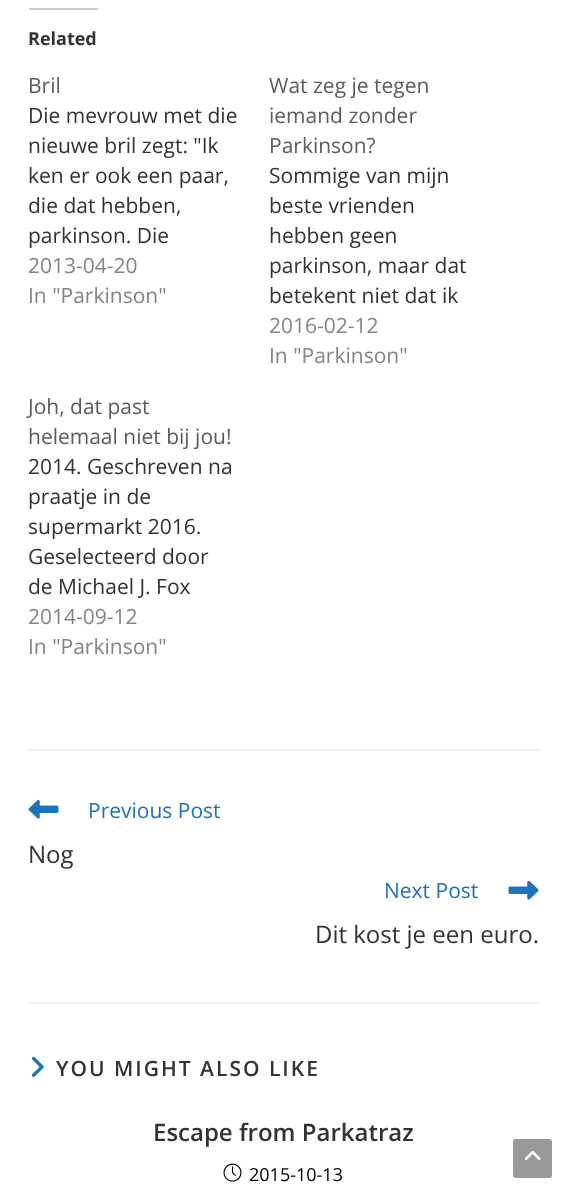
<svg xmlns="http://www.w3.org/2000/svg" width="566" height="1192">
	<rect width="100%" height="100%" fill="#FFFFFF" />
	<rect x="29" y="8" width="69" height="2" fill="#CCCCCC" />
	<text x="28" y="45" font-family="Open Sans" font-size="18" font-weight="700" fill="#333333">Related</text>
	<text x="28" y="93" font-family="Open Sans" font-size="21" fill="#5C5C5C">Bril</text>
	<g font-family="Open Sans" font-size="21" fill="#333333">
		<text x="28" y="123">Die mevrouw met die</text>
		<text x="28" y="153">nieuwe bril zegt: "Ik</text>
		<text x="28" y="183">ken er ook een paar,</text>
		<text x="28" y="213">die dat hebben,</text>
		<text x="28" y="243">parkinson. Die</text>
	</g>
	<g font-family="Open Sans" font-size="21" fill="#858585">
		<text x="28" y="273">2013-04-20</text>
		<text x="28" y="303">In "Parkinson"</text>
	</g>
	<g font-family="Open Sans" font-size="21" fill="#5C5C5C">
		<text x="269" y="93">Wat zeg je tegen</text>
		<text x="269" y="123">iemand zonder</text>
		<text x="269" y="153">Parkinson?</text>
	</g>
	<g font-family="Open Sans" font-size="21" fill="#333333">
		<text x="269" y="183">Sommige van mijn</text>
		<text x="269" y="213">beste vrienden</text>
		<text x="269" y="243">hebben geen</text>
		<text x="269" y="273">parkinson, maar dat</text>
		<text x="269" y="303">betekent niet dat ik</text>
	</g>
	<g font-family="Open Sans" font-size="21" fill="#858585">
		<text x="269" y="333">2016-02-12</text>
		<text x="269" y="363">In "Parkinson"</text>
	</g>
	<g font-family="Open Sans" font-size="21" fill="#5C5C5C">
		<text x="28" y="414">Joh, dat past</text>
		<text x="28" y="444">helemaal niet bij jou!</text>
	</g>
	<g font-family="Open Sans" font-size="21" fill="#333333">
		<text x="28" y="474">2014. Geschreven na</text>
		<text x="28" y="504">praatje in de</text>
		<text x="28" y="534">supermarkt 2016.</text>
		<text x="28" y="564">Geselecteerd door</text>
		<text x="28" y="594">de Michael J. Fox</text>
	</g>
	<g font-family="Open Sans" font-size="21" fill="#858585">
		<text x="28" y="624">2014-09-12</text>
		<text x="28" y="654">In "Parkinson"</text>
	</g>
	<rect x="29" y="749" width="510" height="2" fill="#F1F1F1" />
	<image x="28" y="799" width="31" height="20" href="assets/img1.png" />
	<text x="88" y="818" font-family="Open Sans" font-size="21" fill="#1E73BE">Previous Post</text>
	<text x="28" y="863" font-family="Open Sans" font-size="24" fill="#333333">Nog</text>
	<text x="384" y="898" font-family="Open Sans" font-size="21" fill="#1E73BE">Next Post</text>
	<image x="508" y="880" width="31" height="20" href="assets/img2.png" />
	<text x="315" y="943" font-family="Open Sans" font-size="24" fill="#333333">Dit kost je een euro.</text>
	<rect x="29" y="1002" width="510" height="2" fill="#F1F1F1" />
	<image x="31" y="1056" width="13" height="21" href="assets/img3.png" />
	<text x="56" y="1076" font-family="Open Sans" font-size="21" font-weight="600" letter-spacing="2" fill="#333333">YOU MIGHT ALSO LIKE</text>
	<text x="153" y="1141" font-family="Open Sans" font-size="24" font-weight="600" fill="#333333">Escape from Parkatraz</text>
	<image x="223" y="1163" width="19" height="19" href="assets/img4.png" />
	<text x="249" y="1181" font-family="Open Sans" font-size="18" fill="#000000">2015-10-13</text>
	<rect x="513" y="1139" width="39" height="39" rx="3" fill="#999999" />
	<image x="524" y="1150" width="17" height="10" href="assets/img5.png" />
</svg>
